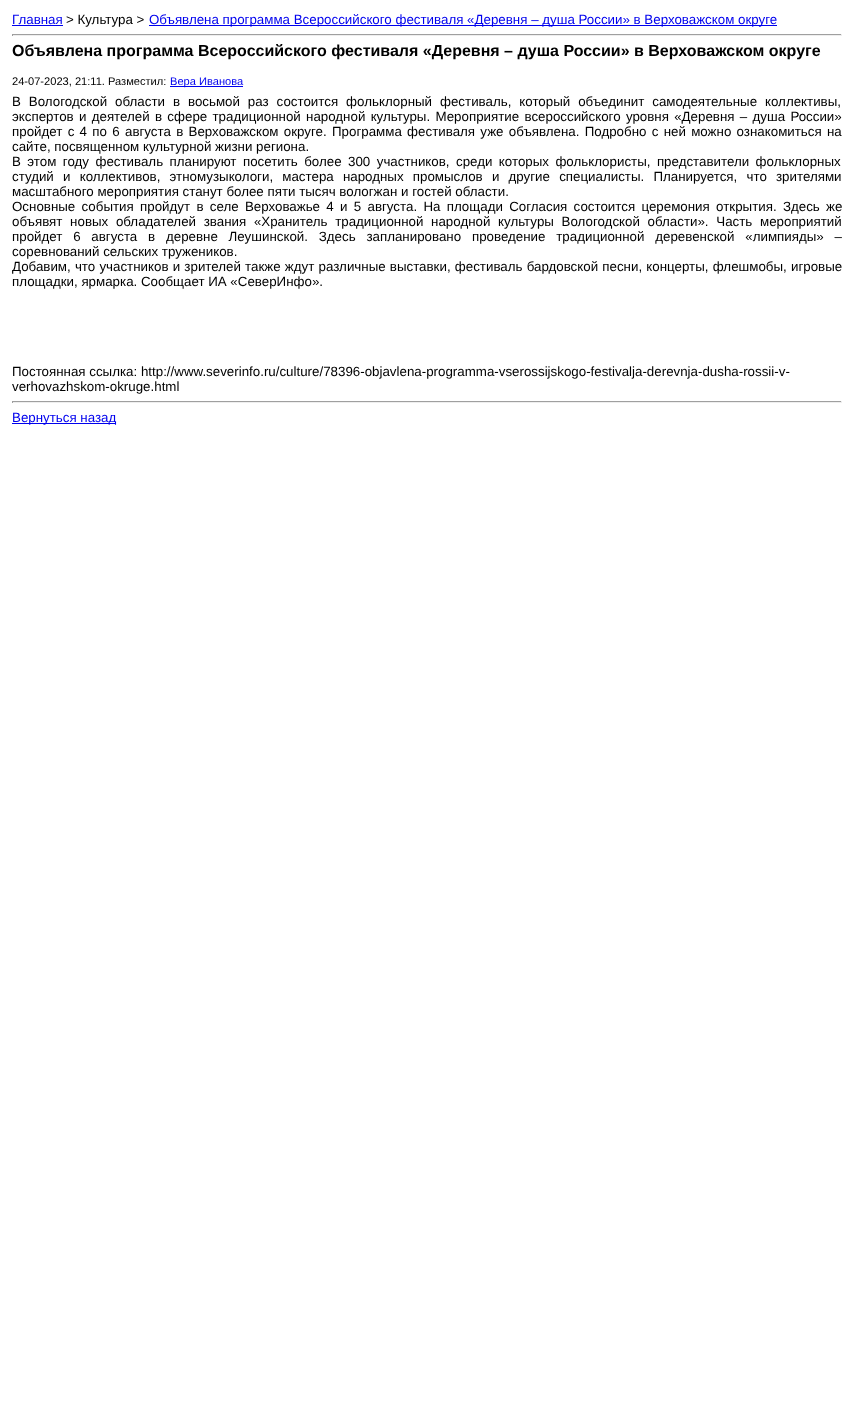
<svg xmlns="http://www.w3.org/2000/svg" width="854" height="1417">
	<rect width="100%" height="100%" fill="#FFFFFF" />
	<text x="12" y="24" font-family="Liberation Sans" font-size="13.33" fill="#0000EE">Главная</text>
	<rect x="12" y="25" width="51" height="1" fill="#0000EE" />
	<text x="66" y="24" font-family="Liberation Sans" font-size="13.33" fill="#000000">&gt; Культура &gt;</text>
	<rect x="149" y="25" width="628" height="1" fill="#0000EE" />
	<text x="149" y="24" font-family="Liberation Sans" font-size="13.33" fill="#0000EE">Объявлена программа Всероссийского фестиваля «Деревня – душа России» в Верховажском округе</text>
	<rect x="12" y="34" width="830" height="1" fill="#9F9F9F" />
	<rect x="841" y="34" width="1" height="2" fill="#EEEEEE" />
	<rect x="12" y="35" width="830" height="1" fill="#EEEEEE" />
	<rect x="12" y="34" width="1" height="2" fill="#9F9F9F" />
	<text x="12" y="56" font-family="Liberation Sans" font-size="16" font-weight="700" fill="#000000">Объявлена программа Всероссийского фестиваля «Деревня – душа России» в Верховажском округе</text>
	<text x="12" y="85" font-family="Liberation Sans" font-size="11.1" fill="#000000">24-07-2023, 21:11. Разместил:</text>
	<rect x="170" y="86" width="73" height="1" fill="#0000EE" />
	<text x="170" y="85" font-family="Liberation Sans" font-size="11.1" fill="#0000EE">Вера Иванова</text>
	<g font-family="Liberation Sans" font-size="13.33" fill="#000000">
		<text x="12" y="106" word-spacing="4.25">В Вологодской области в восьмой раз состоится фольклорный фестиваль, который объединит самодеятельные коллективы,</text>
		<text x="12" y="121" word-spacing="1.6">экспертов и деятелей в сфере традиционной народной культуры. Мероприятие всероссийского уровня «Деревня – душа России»</text>
		<text x="12" y="136" word-spacing="1.6">пройдет с 4 по 6 августа в Верховажском округе. Программа фестиваля уже объявлена. Подробно с ней можно ознакомиться на</text>
		<text x="12" y="151">сайте, посвященном культурной жизни региона.</text>
		<text x="12" y="166" word-spacing="2.75">В этом году фестиваль планируют посетить более 300 участников, среди которых фольклористы, представители фольклорных</text>
		<text x="12" y="181" word-spacing="5.5">студий и коллективов, этномузыкологи, мастера народных промыслов и другие специалисты. Планируется, что зрителями</text>
		<text x="12" y="196">масштабного мероприятия станут более пяти тысяч вологжан и гостей области.</text>
		<text x="12" y="211" word-spacing="2.6">Основные события пройдут в селе Верховажье 4 и 5 августа. На площади Согласия состоится церемония открытия. Здесь же</text>
		<text x="12" y="226" word-spacing="4">объявят новых обладателей звания «Хранитель традиционной народной культуры Вологодской области». Часть мероприятий</text>
		<text x="12" y="241" word-spacing="7.1">пройдет 6 августа в деревне Леушинской. Здесь запланировано проведение традиционной деревенской «лимпияды» –</text>
		<text x="12" y="256">соревнований сельских тружеников.</text>
		<text x="12" y="271" word-spacing="0.5">Добавим, что участников и зрителей также ждут различные выставки, фестиваль бардовской песни, концерты, флешмобы, игровые</text>
		<text x="12" y="286">площадки, ярмарка. Сообщает ИА «СеверИнфо».</text>
		<text x="12" y="376">Постоянная ссылка: http://www.severinfo.ru/culture/78396-objavlena-programma-vserossijskogo-festivalja-derevnja-dusha-rossii-v-</text>
		<text x="12" y="391">verhovazhskom-okruge.html</text>
	</g>
	<rect x="12" y="401" width="830" height="1" fill="#9F9F9F" />
	<rect x="841" y="401" width="1" height="2" fill="#EEEEEE" />
	<rect x="12" y="402" width="830" height="1" fill="#EEEEEE" />
	<rect x="12" y="401" width="1" height="2" fill="#9F9F9F" />
	<rect x="12" y="423" width="104" height="1" fill="#0000EE" />
	<text x="12" y="422" font-family="Liberation Sans" font-size="13.33" fill="#0000EE">Вернуться назад</text>
</svg>
